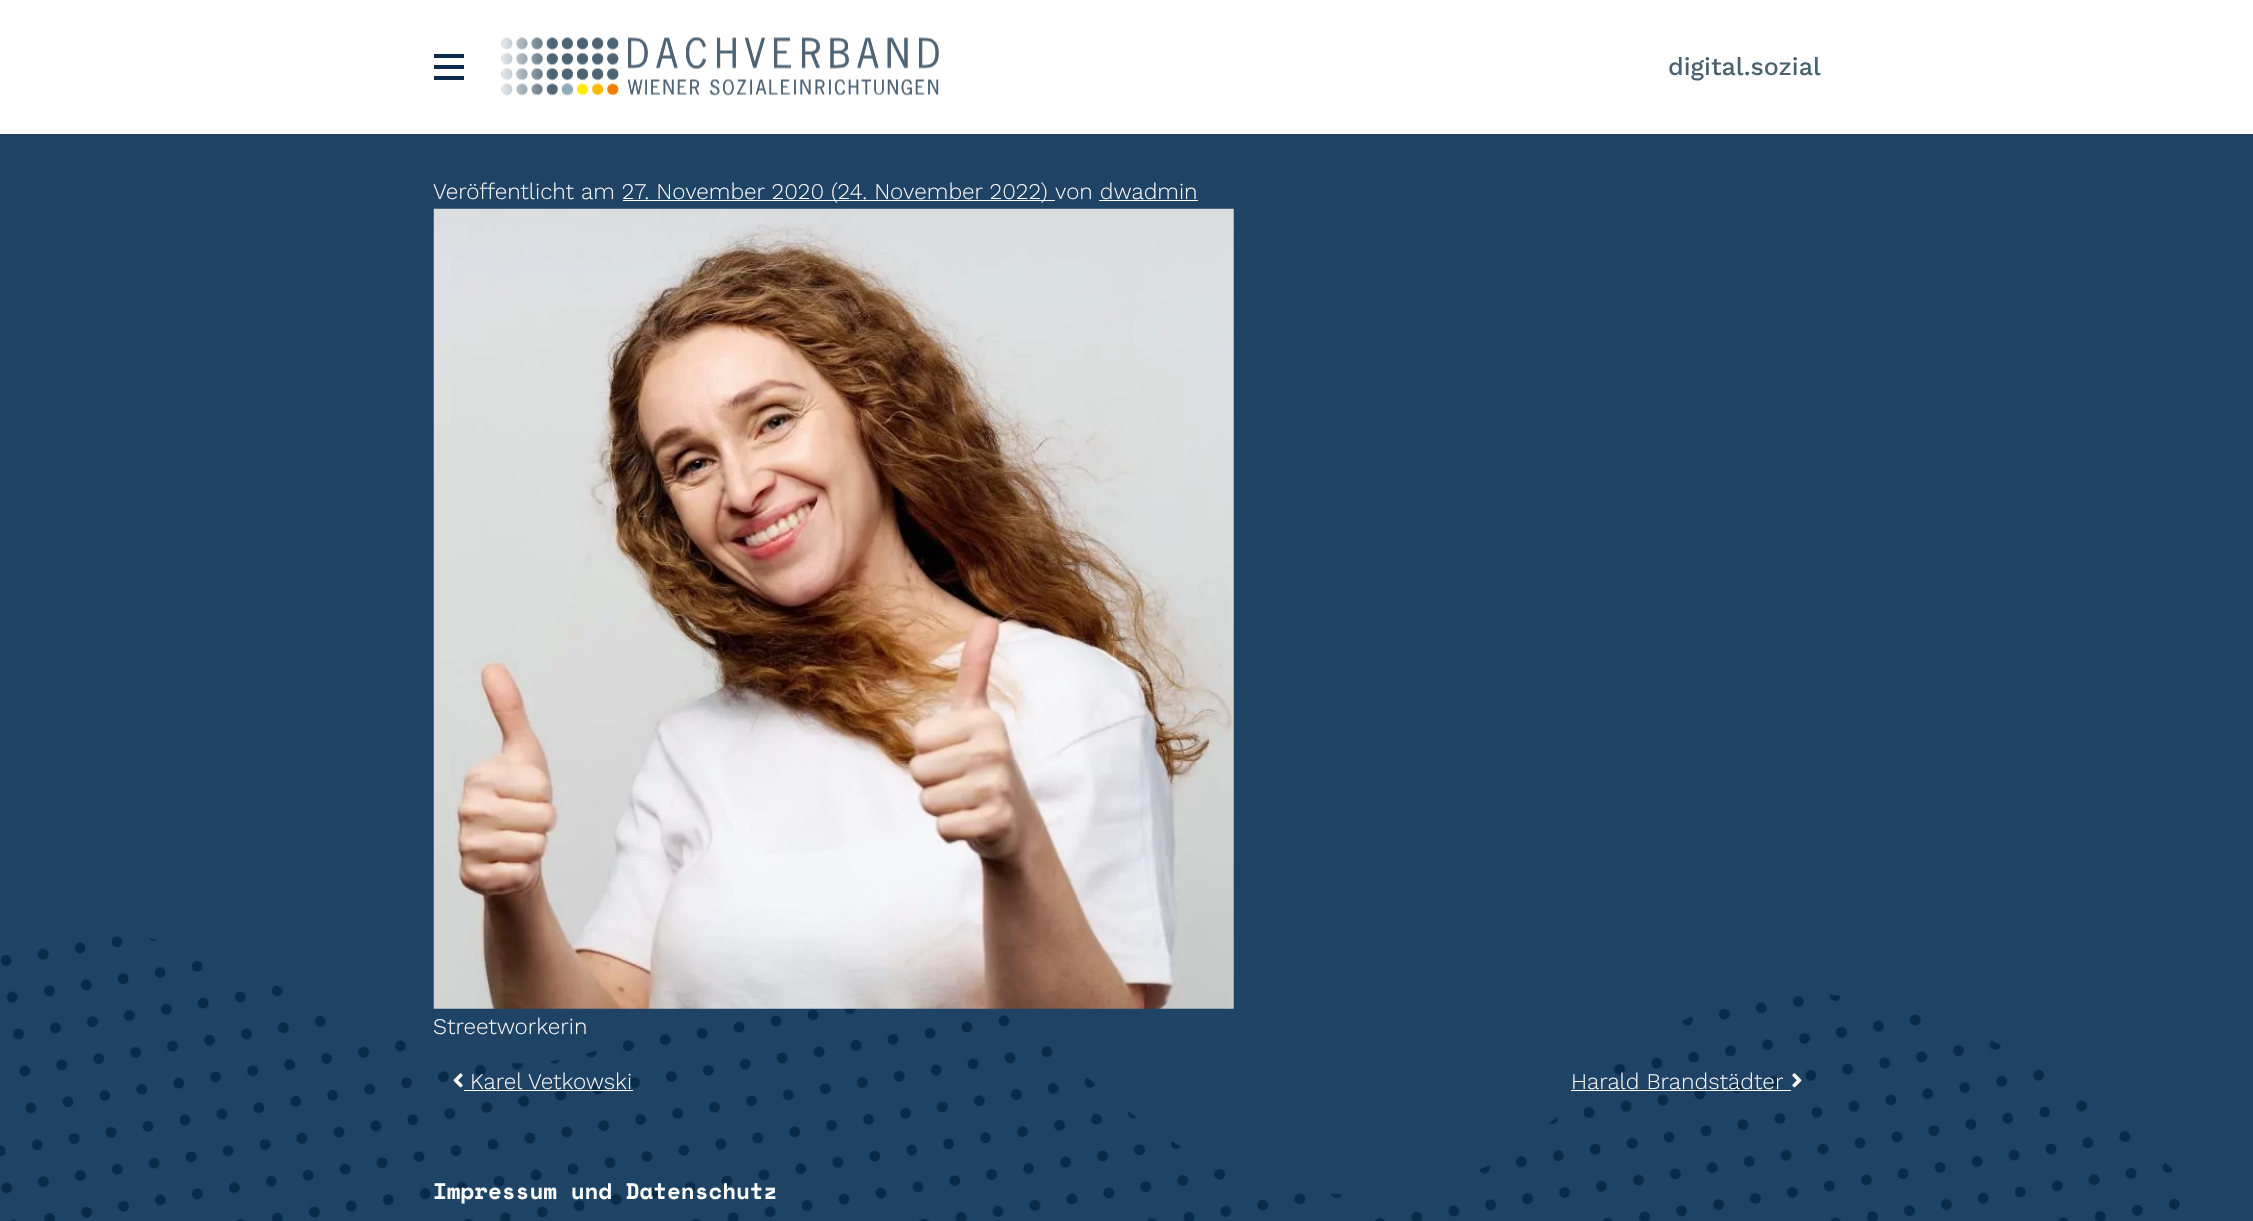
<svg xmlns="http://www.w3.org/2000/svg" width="2253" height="1221">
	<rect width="100%" height="100%" fill="#1E4364" />
	<image x="0" y="936" width="2180" height="285" href="assets/img1.png" />
	<rect x="0" y="0" width="2253" height="134" fill="#FFFFFF" />
	<rect x="434" y="54" width="30" height="4" fill="#092A48" />
	<rect x="434" y="65" width="30" height="4" fill="#092A48" />
	<rect x="434" y="76" width="30" height="4" fill="#092A48" />
	<image x="501" y="37" width="438" height="59" href="assets/img2.png" />
	<text x="1668" y="75" font-family="Work Sans" font-size="25" font-weight="500" fill="#4A6270">digital.sozial</text>
	<text x="433" y="199" font-family="Work Sans" font-size="22.5" font-weight="300" fill="#FFFFFF">Veröffentlicht am 27. November 2020</text>
	<rect x="623" y="200" width="432" height="1" fill="#FFFFFF" />
	<g font-family="Work Sans" font-size="22.5" font-weight="300" fill="#FFFFFF">
		<text x="831" y="199">(24. November 2022)</text>
		<text x="1055" y="199">von dwadmin</text>
	</g>
	<rect x="1099" y="200" width="99" height="1" fill="#FFFFFF" />
	<image x="433" y="208" width="801" height="801" href="assets/img3.png" />
	<text x="433" y="1034" font-family="Work Sans" font-size="22.5" font-weight="300" fill="#FFFFFF">Streetworkerin</text>
	<image x="453" y="1073" width="10" height="15" href="assets/img4.png" />
	<text x="470" y="1089" font-family="Work Sans" font-size="22.5" font-weight="300" fill="#FFFFFF">Karel Vetkowski</text>
	<rect x="464" y="1090" width="169" height="1" fill="#FFFFFF" />
	<text x="1571" y="1089" font-family="Work Sans" font-size="22.5" font-weight="300" fill="#FFFFFF">Harald Brandstädter</text>
	<rect x="1571" y="1090" width="220" height="1" fill="#FFFFFF" />
	<image x="1792" y="1073" width="10" height="15" href="assets/img5.png" />
	<text x="433" y="1199" font-family="Space Mono" font-size="22.5" font-weight="700" fill="#FFFFFF">Impressum und Datenschutz</text>
</svg>
